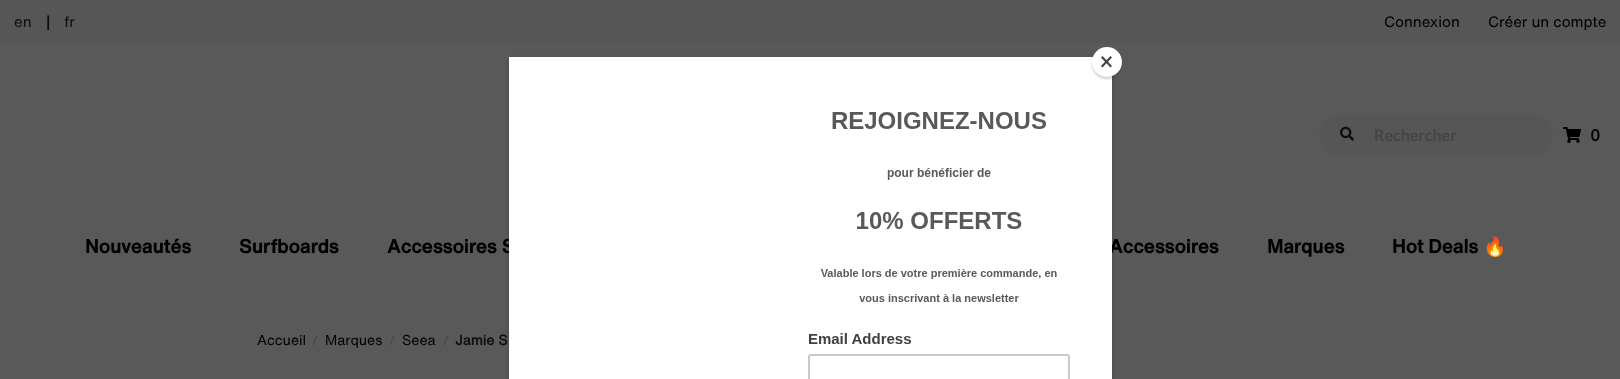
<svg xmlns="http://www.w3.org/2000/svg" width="1620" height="379">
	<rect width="100%" height="100%" fill="#595959" />
	<rect x="0" y="0" width="1374" height="43" fill="#565656" />
	<text x="14" y="27" font-family="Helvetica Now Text" font-size="15" fill="#0C0D0E">en</text>
	<text x="46" y="27" font-family="Helvetica Now Text" font-size="15" font-weight="700" fill="#0C0D0E">|</text>
	<text x="64" y="27" font-family="Helvetica Now Text" font-size="15" fill="#0C0D0E">fr</text>
	<path d="M1374 0H1474V43H1374C1372 43 1370 41 1370 39V4C1370 2 1372 0 1374 0Z" fill="#565656" />
	<text x="1384" y="27" font-family="Helvetica Now Text" font-size="15" fill="#000000">Connexion</text>
	<rect x="1474" y="0" width="146" height="43" fill="#565656" />
	<text x="1488" y="27" font-family="Helvetica Now Text" font-size="15" fill="#000000">Créer un compte</text>
	<rect x="1319" y="114" width="234" height="42" rx="20" fill="#565656" />
	<image x="1340" y="126" width="14" height="15" href="assets/img1.png" />
	<text x="1374" y="141" font-family="Lato" font-size="16" font-weight="700" fill="#454545">Rechercher</text>
	<image x="1563" y="127" width="18" height="16" href="assets/img2.png" />
	<text x="1590" y="141" font-family="Helvetica Now Text" font-size="16" font-weight="700" fill="#000000">0</text>
	<g font-family="'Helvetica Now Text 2'" font-size="19" font-weight="700" fill="#000000">
		<text x="85" y="253">Nouveautés</text>
		<text x="239" y="253">Surfboards</text>
		<text x="387" y="253">Accessoires S</text>
		<text x="1109" y="253">Accessoires</text>
		<text x="1267" y="253">Marques</text>
		<text x="1392" y="253">Hot Deals</text>
	</g>
	<text x="1483" y="253" font-family="Noto Color Emoji" font-size="19" font-weight="700" fill="#000000">🔥</text>
	<text x="257" y="345" font-family="Helvetica Now Text" font-size="14" fill="#000000">Accueil</text>
	<text x="312" y="345" font-family="Helvetica Now Text" font-size="13" fill="#454545">/</text>
	<text x="325" y="345" font-family="Helvetica Now Text" font-size="14" fill="#000000">Marques</text>
	<text x="389" y="345" font-family="Helvetica Now Text" font-size="13" fill="#454545">/</text>
	<text x="402" y="345" font-family="Helvetica Now Text" font-size="14" fill="#000000">Seea</text>
	<text x="443" y="345" font-family="Helvetica Now Text" font-size="13" fill="#454545">/</text>
	<text x="455" y="345" font-family="Helvetica Now Text" font-size="14" font-weight="700" fill="#0C0D0E">Jamie S</text>
	<rect x="509" y="59" width="603" height="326" fill="#000000" fill-opacity="0.2" filter="blur(2px)" />
	<image x="509" y="57" width="603" height="322" href="assets/img3.png" />
	<rect x="1092" y="49" width="30" height="30" rx="15" fill="#000000" fill-opacity="0.2" filter="blur(1px)" />
	<circle cx="1107" cy="62" r="15" fill="#FFFFFF" />
	<path d="M1110.5 56L1112 57.5L1102.5 67.5L1101 66Z" fill="#414141" />
	<path d="M1101 57.5L1102.5 56L1112 66L1110.5 67.5Z" fill="#414141" />
</svg>
